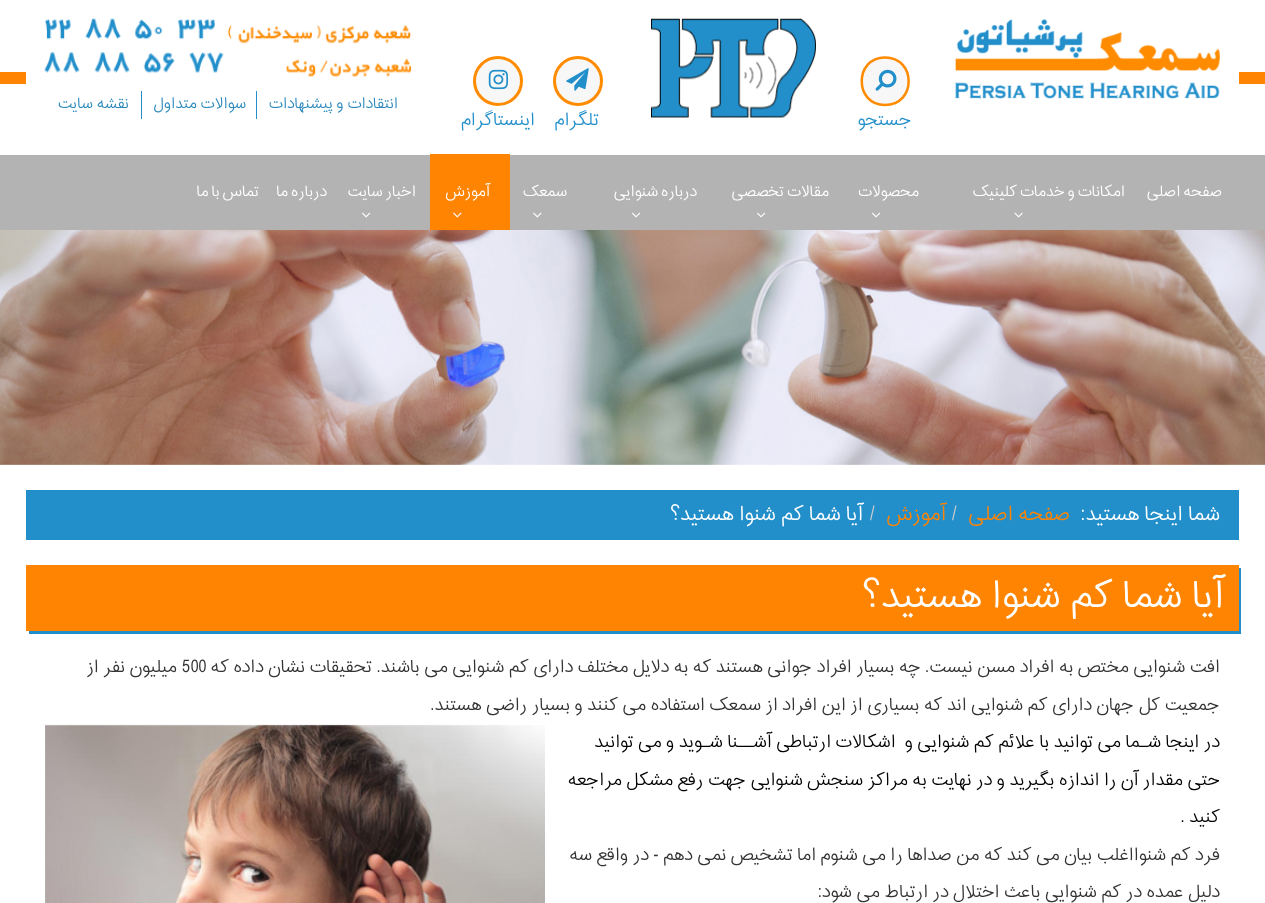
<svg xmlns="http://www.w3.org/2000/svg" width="1265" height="903">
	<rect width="100%" height="100%" fill="#FFFFFF" />
	<rect x="0" y="72" width="1265" height="12" fill="#FF8402" />
	<rect x="26" y="72" width="1213" height="12" fill="#FFFFFF" />
	<image x="954" y="19" width="266" height="80" href="assets/img1.png" />
	<image x="651" y="18" width="165" height="100" href="assets/img2.png" />
	<image x="44" y="18" width="368" height="59" href="assets/img3.png" />
	<rect x="256" y="91" width="1" height="28" fill="#228FCB" />
	<text x="398" y="108" font-family="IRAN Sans" font-size="15" font-weight="300" direction="rtl" fill="#2C89BC">انتقادات و پیشنهادات</text>
	<rect x="141" y="91" width="1" height="28" fill="#228FCB" />
	<g font-family="IRAN Sans" font-size="15" font-weight="300" direction="rtl" fill="#2C89BC">
		<text x="246" y="108">سوالات متداول</text>
		<text x="129" y="108">نقشه سایت</text>
	</g>
	<path d="M885 56C852 56 852 106 885 106C918 106 918 56 885 56Z" fill="#F7F7F7" />
	<path d="M885 57.5C854 57.5 854 105 885 105C916.5 105 916.5 57.5 885 57.5Z" fill="none" stroke="#FF8B00" stroke-width="2.5" />
	<image x="875" y="69" width="22" height="22" href="assets/img4.png" />
	<text x="912" y="125" font-family="IRAN Sans" font-size="17.5" font-weight="300" direction="rtl" fill="#228FCB">جستجو</text>
	<circle cx="578" cy="81" r="23.5" fill="#F7F7F7" stroke="#FF8B00" stroke-width="3" />
	<image x="566" y="68" width="23" height="23" href="assets/img5.png" />
	<text x="599" y="125" font-family="IRAN Sans" font-size="17.5" font-weight="300" direction="rtl" fill="#228FCB">تلگرام</text>
	<circle cx="498" cy="81" r="23.5" fill="#F7F7F7" stroke="#FF8B00" stroke-width="3" />
	<image x="488" y="69" width="21" height="21" href="assets/img6.png" />
	<text x="535" y="125" font-family="IRAN Sans" font-size="17.5" font-weight="300" direction="rtl" fill="#228FCB">اینستاگرام</text>
	<rect x="0" y="155" width="1265" height="75" fill="#B3B3B3" />
	<g font-family="IRAN Sans" font-size="15" font-weight="300" letter-spacing="1.25" direction="rtl" fill="#FFFFFF">
		<text x="1222" y="196" word-spacing="-1">صفحه اصلی</text>
		<text x="1125" y="196" word-spacing="-1">امکانات و خدمات کلینیک</text>
	</g>
	<image x="1014" y="212" width="9" height="6" href="assets/img7.png" />
	<text x="919" y="196" font-family="IRAN Sans" font-size="15" font-weight="300" letter-spacing="1.25" direction="rtl" fill="#FFFFFF">محصولات</text>
	<image x="872" y="212" width="9" height="6" href="assets/img8.png" />
	<text x="829" y="196" word-spacing="-1" font-family="IRAN Sans" font-size="15" font-weight="300" letter-spacing="1.25" direction="rtl" fill="#FFFFFF">مقالات تخصصی</text>
	<image x="757" y="212" width="9" height="6" href="assets/img8.png" />
	<text x="697" y="196" word-spacing="-1" font-family="IRAN Sans" font-size="15" font-weight="300" letter-spacing="1.25" direction="rtl" fill="#FFFFFF">درباره شنوایی</text>
	<image x="632" y="212" width="9" height="6" href="assets/img8.png" />
	<text x="567" y="196" font-family="IRAN Sans" font-size="15" font-weight="300" letter-spacing="1.25" direction="rtl" fill="#FFFFFF">سمعک</text>
	<image x="533" y="212" width="9" height="6" href="assets/img9.png" />
	<rect x="430" y="154" width="80" height="76" fill="#FE8401" />
	<text x="490" y="196" font-family="IRAN Sans" font-size="15" font-weight="300" letter-spacing="1.25" direction="rtl" fill="#FFFFFF">آموزش</text>
	<image x="453" y="212" width="9" height="6" href="assets/img10.png" />
	<text x="416" y="196" word-spacing="-1" font-family="IRAN Sans" font-size="15" font-weight="300" letter-spacing="1.25" direction="rtl" fill="#FFFFFF">اخبار سایت</text>
	<image x="362" y="212" width="9" height="6" href="assets/img8.png" />
	<g font-family="IRAN Sans" font-size="15" font-weight="300" letter-spacing="1.25" direction="rtl" fill="#FFFFFF">
		<text x="327" y="196" word-spacing="-1">درباره ما</text>
		<text x="259" y="196" word-spacing="-1">تماس با ما</text>
	</g>
	<image x="0" y="230" width="1265" height="235" href="assets/img11.png" />
	<rect x="26" y="490" width="1213" height="50" fill="#228FCB" />
	<text x="1220" y="520" font-family="IRAN Sans" font-size="20" font-weight="300" direction="rtl" fill="#FFFFFF">شما اینجا هستید:</text>
	<text x="1070" y="520" font-family="IRAN Sans" font-size="20" font-weight="300" direction="rtl" fill="#FE8401">صفحه اصلی</text>
	<text x="952" y="520" font-family="IRAN Sans" font-size="20" font-weight="300" fill="#CCCCCC">/</text>
	<text x="946" y="520" font-family="IRAN Sans" font-size="20" font-weight="300" direction="rtl" fill="#FE8401">آموزش</text>
	<text x="870" y="520" font-family="IRAN Sans" font-size="20" font-weight="300" fill="#CCCCCC">/</text>
	<text x="863" y="520" font-family="IRAN Sans" font-size="20" font-weight="300" direction="rtl" fill="#FFFFFF">آیا شما کم شنوا هستید؟</text>
	<rect x="29" y="568" width="1212" height="66" fill="#228FCB" filter="blur(0.5px)" />
	<rect x="26" y="565" width="1213" height="66" fill="#FE8401" />
	<text x="1224" y="607" font-family="IRAN Sans" font-size="37.5" font-weight="300" direction="rtl" fill="#FFFFFF">آیا شما کم شنوا هستید؟</text>
	<text x="1220" y="672" font-family="IRAN Sans" font-size="17.5" font-weight="300" direction="rtl" fill="#333333">افت شنوایی مختص به افراد مسن نیست. چه بسیار افراد جوانی هستند که به دلایل مختلف دارای کم شنوایی می باشند. تحقیقات نشان داده که</text>
	<text x="182" y="672" font-family="IRAN Sans" font-size="17.5" font-weight="300" fill="#333333">500</text>
	<g font-family="IRAN Sans" font-size="17.5" font-weight="300" direction="rtl" fill="#333333">
		<text x="177" y="672">میلیون نفر از</text>
		<text x="1220" y="710">جمعیت کل جهان دارای کم شنوایی اند که بسیاری از این افراد از سمعک استفاده می کنند و بسیار راضی هستند.</text>
	</g>
	<text x="1220" y="747" font-family="IRAN Sans" font-size="17.5" font-weight="300" direction="rtl" fill="#000000" xml:space="preserve">در اینجا شـما می توانید با علائم کم شنوایی و  اشکالات ارتباطی آشــنا شـوید و می توانید</text>
	<image x="45" y="724" width="500" height="179" href="assets/img12.png" />
	<g font-family="IRAN Sans" font-size="17.5" font-weight="300" direction="rtl" fill="#000000">
		<text x="1220" y="785">حتی مقدار آن را اندازه بگیرید و در نهایت به مراکز سنجش شنوایی جهت رفع مشکل مراجعه</text>
		<text x="1220" y="822">کنید .</text>
	</g>
	<g font-family="IRAN Sans" font-size="17.5" font-weight="300" direction="rtl" fill="#333333">
		<text x="1220" y="860">فرد کم شنوااغلب بیان می کند که من صداها را می شنوم اما تشخیص نمی دهم - در واقع سه</text>
		<text x="1220" y="897">دلیل عمده در کم شنوایی باعث اختلال در ارتباط می شود:</text>
	</g>
</svg>
